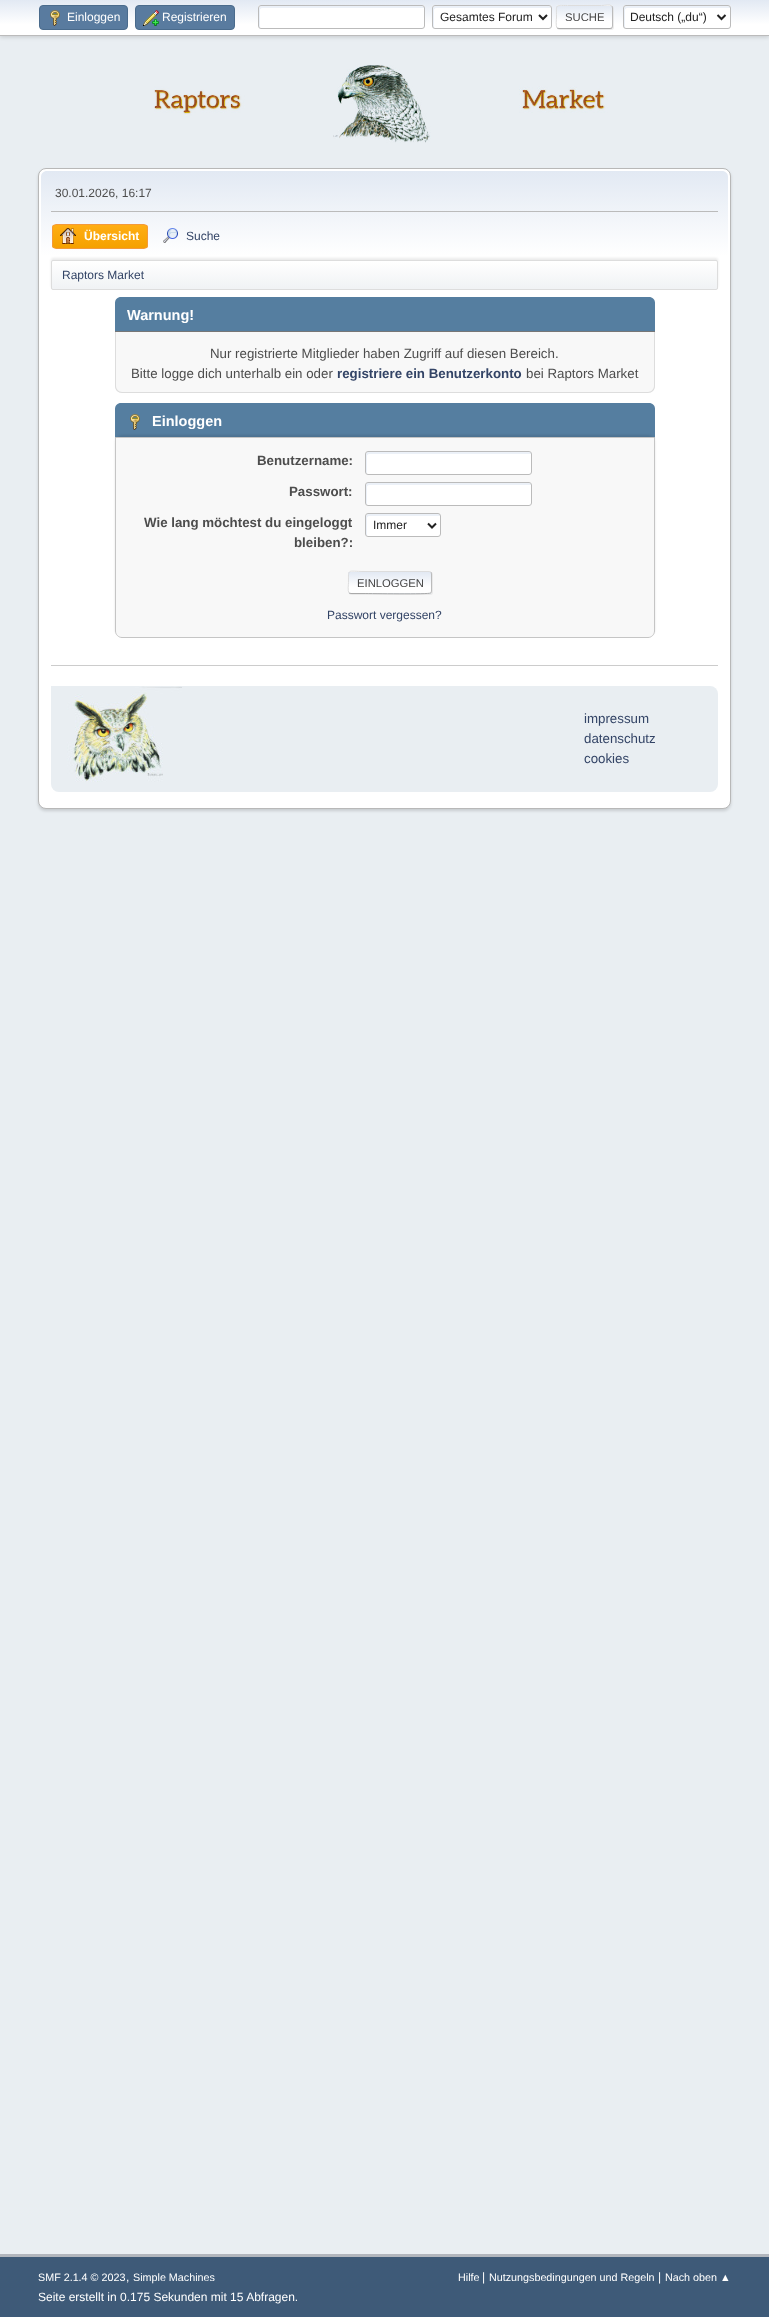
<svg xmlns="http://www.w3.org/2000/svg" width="769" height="2317">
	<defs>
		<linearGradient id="g1" gradientUnits="userSpaceOnUse" x1="385" y1="0" x2="385" y2="35"><stop offset="0" stop-color="#E2E9F3" /><stop offset="0.7" stop-color="#FFFFFF" /></linearGradient>
		<clipPath id="clip1"><rect x="556" y="5" width="57" height="24" rx="3" /></clipPath>
		<linearGradient id="g2" gradientUnits="userSpaceOnUse" x1="585" y1="-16" x2="585" y2="6"><stop offset="0" stop-color="#E2E9F3" /><stop offset="0.7" stop-color="#FFFFFF" /></linearGradient>
		<linearGradient id="g3" gradientUnits="userSpaceOnUse" x1="585" y1="6" x2="585" y2="28"><stop offset="0" stop-color="#E2E9F3" /><stop offset="0.7" stop-color="#FFFFFF" /></linearGradient>
		<linearGradient id="g4" gradientUnits="userSpaceOnUse" x1="385" y1="171" x2="385" y2="292"><stop offset="0" stop-color="#E2E9F3" /><stop offset="0.7" stop-color="#FFFFFF" /></linearGradient>
		<clipPath id="clip2"><rect x="52" y="224" width="96" height="25" rx="4" /></clipPath>
		<linearGradient id="g5" gradientUnits="userSpaceOnUse" x1="100" y1="225" x2="100" y2="248"><stop offset="0" stop-color="#FFAE14" /><stop offset="1" stop-color="#F5A100" /></linearGradient>
		<clipPath id="clip3"><rect x="51" y="260" width="667" height="30" rx="2" /></clipPath>
		<linearGradient id="g6" gradientUnits="userSpaceOnUse" x1="385" y1="261" x2="385" y2="289"><stop offset="0" stop-color="#FFFFFF" /><stop offset="0.95" stop-color="#F1F3F5" /></linearGradient>
		<clipPath id="clip4"><rect x="348" y="571" width="84" height="23" rx="3" /></clipPath>
		<linearGradient id="g7" gradientUnits="userSpaceOnUse" x1="390" y1="551" x2="390" y2="572"><stop offset="0" stop-color="#E2E9F3" /><stop offset="0.7" stop-color="#FFFFFF" /></linearGradient>
		<linearGradient id="g8" gradientUnits="userSpaceOnUse" x1="390" y1="572" x2="390" y2="593"><stop offset="0" stop-color="#E2E9F3" /><stop offset="0.7" stop-color="#FFFFFF" /></linearGradient>
		<linearGradient id="g9" gradientUnits="userSpaceOnUse" x1="390" y1="593" x2="390" y2="614"><stop offset="0" stop-color="#E2E9F3" /><stop offset="0.7" stop-color="#FFFFFF" /></linearGradient>
	</defs>
	<rect width="100%" height="100%" fill="#E9EEF2" />
	<rect x="0" y="1" width="769" height="36" fill="#000000" fill-opacity="0.16" filter="blur(2px)" />
	<rect x="0" y="0" width="769" height="35" fill="url(#g1)" />
	<rect x="0" y="35" width="769" height="1" fill="#BBBBBB" />
	<rect x="39.5" y="5.5" width="88" height="24" rx="3.5" fill="#597B9F" stroke="#4A6B8C" />
	<image x="50" y="10" width="10" height="16" href="assets/img1.png" />
	<text x="67" y="21" font-family="Liberation Sans" font-size="12" fill="#FFFFFF">Einloggen</text>
	<rect x="135.5" y="5.5" width="99" height="24" rx="3.5" fill="#597B9F" stroke="#4A6B8C" />
	<image x="143" y="10" width="16" height="16" href="assets/img2.png" />
	<text x="162" y="21" font-family="Liberation Sans" font-size="12" fill="#FFFFFF">Registrieren</text>
	<rect x="258" y="5" width="167" height="24" rx="3" fill="#FFFFFF" />
	<path d="M262 8H424V7L422 6H261C260 6 259 7 259 8C259 11 258 27 260 28V10C260 9 261 8 262 8Z" fill="#ECF1F8" />
	<rect x="258.5" y="5.5" width="166" height="23" rx="2.5" fill="none" stroke="#BBBBBB" />
	<rect x="432" y="5" width="120" height="24" rx="3" fill="#FFFFFF" />
	<path d="M436 8H551C551 7 550 6 549 6H435C434 6 433 7 433 8V26C433 27 433 27 434 28V10C434 9 435 8 436 8Z" fill="#ECF1F8" />
	<rect x="432.5" y="5.5" width="119" height="23" rx="2.5" fill="none" stroke="#BBBBBB" />
	<path d="M539 15L543 19L547 15" fill="none" stroke="#222222" stroke-width="2" />
	<text x="440" y="21" font-family="Liberation Sans" font-size="12" fill="#222222">Gesamtes Forum</text>
	<rect x="557" y="6" width="57" height="24" rx="3" fill="#DDDDDD" fill-opacity="0.57" filter="blur(0.5px)" />
	<g clip-path="url(#clip1)">
		<rect x="556" y="5" width="57" height="1" fill="url(#g2)" />
		<rect x="556" y="6" width="57" height="22" fill="url(#g3)" />
	</g>
	<path d="M612 6C612 6.5 612.5 7.5 612.5 8V26C612.5 26.5 612 27.5 612 28" fill="none" stroke="#BBBBBB" />
	<path d="M612 28L610 28.5H559L557 28" fill="none" stroke="#AAAAAA" />
	<path d="M557 28C555.5 26 556.5 19 556.5 17C556.5 4 554.5 5.5 567.5 5.5H601.5C605 5.5 609.5 4 612 6" fill="none" stroke="#DDDDDD" />
	<text x="565" y="21" font-family="Liberation Sans" font-size="11.25" fill="#444444">SUCHE</text>
	<rect x="623" y="5" width="108" height="24" rx="3" fill="#FFFFFF" />
	<path d="M627 8H730C730 7 730 6 728 6H626C625 6 624 7 624 8C624 11 623 27 625 28V10C625 9 626 8 627 8Z" fill="#ECF1F8" />
	<rect x="623.5" y="5.5" width="107" height="23" rx="2.5" fill="none" stroke="#BBBBBB" />
	<path d="M717.5 15L721.5 19L725.5 15" fill="none" stroke="#222222" stroke-width="2" />
	<text x="630" y="21" font-family="Liberation Sans" font-size="12" fill="#222222">Deutsch („du“)</text>
	<image x="154" y="65" width="454" height="78" href="assets/img3.png" />
	<rect x="38" y="170" width="693" height="641" rx="8" fill="#000000" fill-opacity="0.14" filter="blur(1.5px)" />
	<rect x="38.5" y="168.5" width="692" height="640" rx="7.5" fill="#FFFFFF" stroke="#B8B8B8" />
	<path d="M47 171H722C725.5 171 728 173.5 728 177V292H41V177C41 173.5 43.5 171 47 171Z" fill="url(#g4)" />
	<rect x="51" y="211" width="667" height="1" fill="#BBBBBB" />
	<text x="55" y="197" font-family="Liberation Sans" font-size="12" fill="#4D4D4D">30.01.2026, 16:17</text>
	<g clip-path="url(#clip2)">
		<rect x="52" y="225" width="96" height="23" fill="url(#g5)" />
	</g>
	<rect x="52.5" y="224.5" width="95" height="24" rx="3.5" fill="none" stroke="#F49A3A" />
	<image x="60" y="228" width="16" height="16" href="assets/img4.png" />
	<text x="84" y="240" font-family="Liberation Sans" font-size="12" font-weight="700" fill="#FFFFFF">Übersicht</text>
	<image x="163" y="228" width="15" height="15" href="assets/img5.png" />
	<text x="186" y="240" font-family="Liberation Sans" font-size="12" fill="#334466">Suche</text>
	<rect x="51" y="258" width="667" height="30" rx="2" fill="#000000" fill-opacity="0.08" filter="blur(1px)" />
	<g clip-path="url(#clip3)">
		<rect x="51" y="261" width="667" height="28" fill="url(#g6)" />
	</g>
	<rect x="51.5" y="260.5" width="666" height="29" rx="1.5" fill="none" stroke="#DDDDDD" />
	<text x="62" y="279" font-family="Liberation Sans" font-size="12" fill="#334466">Raptors Market</text>
	<path d="M121 297H649C652.5 297 655 299.5 655 303V332H115V303C115 299.5 117.5 297 121 297Z" fill="#557EA0" />
	<rect x="115" y="331" width="540" height="1" fill="#777777" />
	<text x="127" y="320" font-family="Liberation Sans" font-size="14.5" font-weight="700" fill="#FFFFFF">Warnung!</text>
	<path d="M115 332H655V386C655 390 652 393 648 393H122C118 393 115 390 115 386Z" fill="#F8F8F8" />
	<path d="M115 332H655V386C655 390 652 393 648 393H122C118 393 115 390 115 386ZM116 332H654V386C654 389 651 392 648 392H122C119 392 116 389 116 386Z" fill="#DDDDDD" fill-rule="evenodd" />
	<g font-family="Liberation Sans" font-size="13.3" fill="#4D4D4D">
		<text x="210" y="358">Nur registrierte Mitglieder haben Zugriff auf diesen Bereich.</text>
		<text x="131" y="378">Bitte logge dich unterhalb ein oder</text>
	</g>
	<text x="337" y="378" font-family="Liberation Sans" font-size="13.3" font-weight="700" fill="#334466">registriere ein Benutzerkonto</text>
	<text x="526" y="378" font-family="Liberation Sans" font-size="13.3" fill="#4D4D4D">bei Raptors Market</text>
	<path d="M121 403H649C652.5 403 655 405.5 655 409V438H115V409C115 405.5 117.5 403 121 403Z" fill="#557EA0" />
	<image x="130" y="414" width="10" height="16" href="assets/img6.png" />
	<text x="152" y="426" font-family="Liberation Sans" font-size="14.5" font-weight="700" fill="#FFFFFF">Einloggen</text>
	<rect x="115" y="435" width="540" height="201" rx="7" fill="#000000" fill-opacity="0.1" filter="blur(1px)" />
	<path d="M115.5 437.5H654.5V631C654.5 634.5 651.5 637.5 648 637.5H122C118.5 637.5 115.5 634.5 115.5 631Z" fill="#F8F8F8" stroke="#C5C5C5" />
	<text x="257" y="465" font-family="Liberation Sans" font-size="13.3" font-weight="700" fill="#4D4D4D">Benutzername:</text>
	<rect x="365" y="451" width="167" height="24" rx="3" fill="#FFFFFF" />
	<path d="M369 454H531V453L529 452H368C367 452 366 453 366 454C366 457 365 473 367 474V456C367 455 368 454 369 454Z" fill="#ECF1F8" />
	<rect x="365.5" y="451.5" width="166" height="23" rx="2.5" fill="none" stroke="#BBBBBB" />
	<text x="289" y="496" font-family="Liberation Sans" font-size="13.3" font-weight="700" fill="#4D4D4D">Passwort:</text>
	<rect x="365" y="482" width="167" height="24" rx="3" fill="#FFFFFF" />
	<path d="M369 485H531V484L529 483H368C367 483 366 484 366 485C366 488 365 504 367 505V487C367 486 368 485 369 485Z" fill="#ECF1F8" />
	<rect x="365.5" y="482.5" width="166" height="23" rx="2.5" fill="none" stroke="#BBBBBB" />
	<g font-family="Liberation Sans" font-size="13.3" font-weight="700" fill="#4D4D4D">
		<text x="144" y="527">Wie lang möchtest du eingeloggt</text>
		<text x="294" y="547">bleiben?:</text>
	</g>
	<rect x="365" y="513" width="76" height="24" rx="3" fill="#FFFFFF" />
	<path d="M369 516H440C440 512 431 514 426 514H380C364 514 366 511 366 525C366 527 365 535 367 536V518C367 517 368 516 369 516Z" fill="#ECF1F8" />
	<rect x="365.5" y="513.5" width="75" height="23" rx="2.5" fill="none" stroke="#BBBBBB" />
	<path d="M428 523.5L432 527.5L436 523.5" fill="none" stroke="#222222" stroke-width="2" />
	<text x="373" y="529" font-family="Liberation Sans" font-size="12" fill="#222222">Immer</text>
	<rect x="349" y="572" width="84" height="23" rx="3" fill="#DDDDDD" fill-opacity="0.57" filter="blur(0.5px)" />
	<g clip-path="url(#clip4)">
		<rect x="348" y="571" width="84" height="1" fill="url(#g7)" />
		<rect x="348" y="572" width="84" height="21" fill="url(#g8)" />
		<rect x="348" y="593" width="84" height="1" fill="url(#g9)" />
	</g>
	<path d="M431 572C431 572.5 431.5 573.5 431.5 574V591C431.5 591.5 431 592.5 431 593" fill="none" stroke="#BBBBBB" />
	<path d="M431 593H430.5C428.5 594.5 371 593.5 364 593.5H351L349 593" fill="none" stroke="#AAAAAA" />
	<path d="M349 593C347.5 591 348.5 584.5 348.5 582.5C348.5 568 347 571.5 364 571.5H429L431 572" fill="none" stroke="#DDDDDD" />
	<text x="357" y="587" font-family="Liberation Sans" font-size="11.25" fill="#444444">EINLOGGEN</text>
	<text x="327" y="619" font-family="Liberation Sans" font-size="12" fill="#334466">Passwort vergessen?</text>
	<rect x="51" y="665" width="667" height="1" fill="#CCCCCC" />
	<rect x="51" y="686" width="667" height="106" rx="8" fill="#E9EEF2" />
	<image x="51" y="686" width="131" height="96" href="assets/img7.png" />
	<g font-family="Liberation Sans" font-size="13.3" fill="#334466">
		<text x="584" y="723">impressum</text>
		<text x="584" y="743">datenschutz</text>
		<text x="584" y="763">cookies</text>
	</g>
	<rect x="0" y="2257" width="769" height="60" fill="#3E5A78" />
	<rect x="0" y="2254" width="769" height="3" fill="#B2B6BD" />
	<text x="38" y="2281" font-family="Liberation Sans" font-size="10.75" fill="#FFFFFF">SMF 2.1.4 © 2023</text>
	<text x="126" y="2281" font-family="Liberation Sans" font-size="12" fill="#FFFFFF">,</text>
	<g font-family="Liberation Sans" font-size="10.75" fill="#FFFFFF">
		<text x="133" y="2281">Simple Machines</text>
		<text x="458" y="2281">Hilfe</text>
	</g>
	<text x="482" y="2281" font-family="Liberation Sans" font-size="12" fill="#FFFFFF">|</text>
	<text x="489" y="2281" font-family="Liberation Sans" font-size="10.75" fill="#FFFFFF">Nutzungsbedingungen und Regeln</text>
	<text x="658" y="2281" font-family="Liberation Sans" font-size="12" fill="#FFFFFF">|</text>
	<text x="665" y="2281" font-family="Liberation Sans" font-size="10.75" fill="#FFFFFF">Nach oben ▲</text>
	<text x="38" y="2301" font-family="Liberation Sans" font-size="12" fill="#FFFFFF">Seite erstellt in 0.175 Sekunden mit 15 Abfragen.</text>
</svg>
